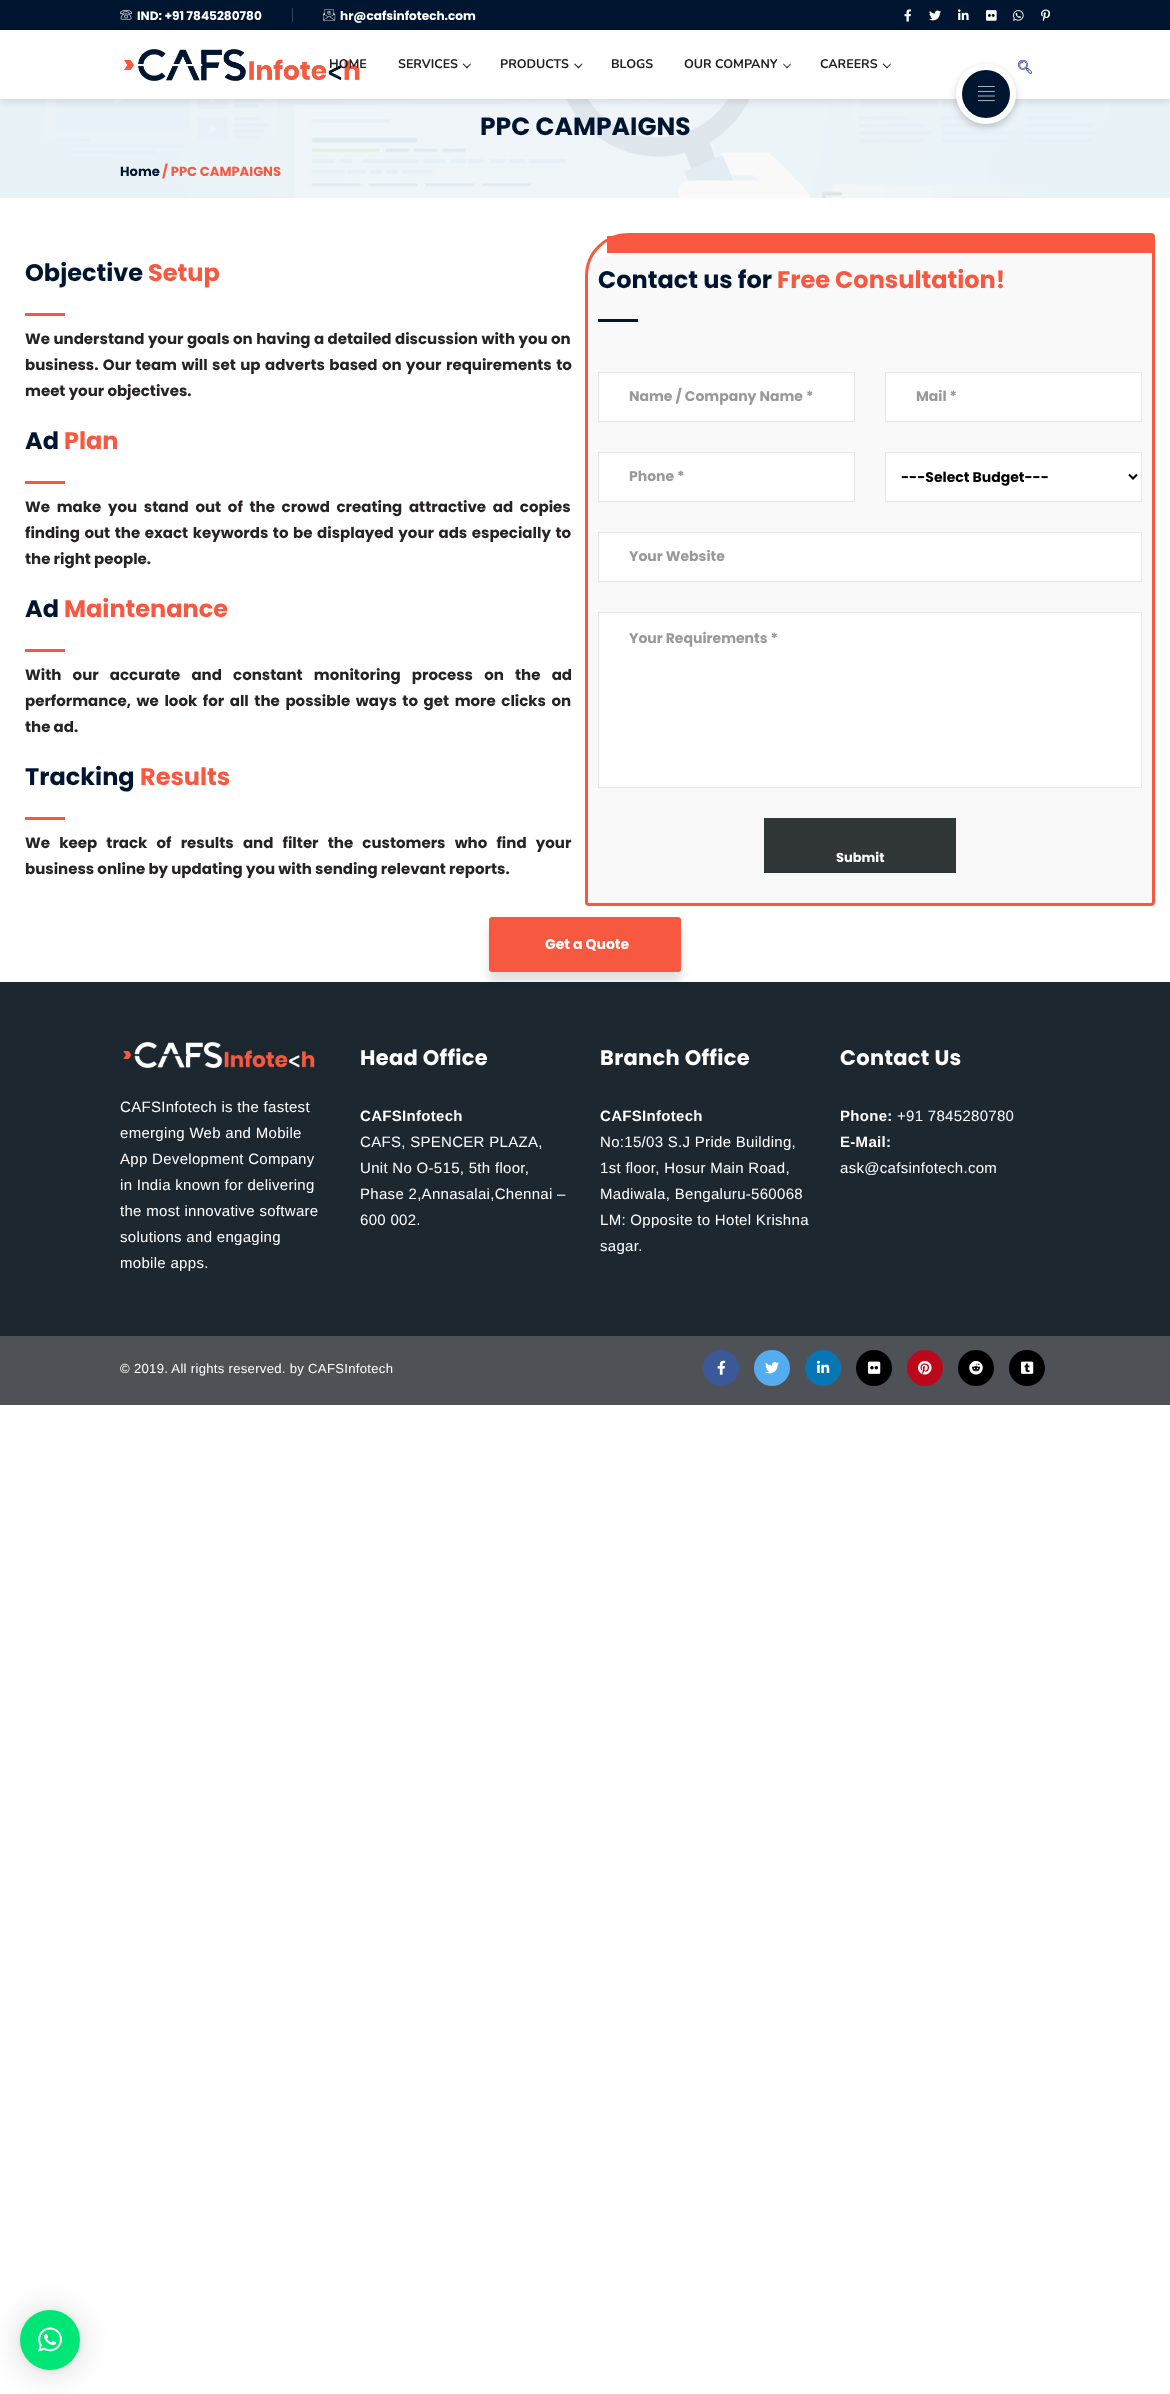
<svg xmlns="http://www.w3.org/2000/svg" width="1170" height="2394">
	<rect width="100%" height="100%" fill="#FFFFFF" />
	<rect x="0" y="99" width="1170" height="99" fill="#F9F9F9" />
	<image x="0" y="99" width="1170" height="99" href="assets/img12.png" />
	<rect x="0" y="33" width="1170" height="69" fill="#000000" fill-opacity="0.1" filter="blur(3.5px)" />
	<rect x="0" y="0" width="1170" height="30" fill="#001630" />
	<rect x="292" y="8" width="1" height="14" fill="#334559" />
	<image x="120" y="9" width="13" height="11" href="assets/img1.png" />
	<text x="137" y="20" font-family="Poppins" font-size="12.1" font-weight="700" fill="#FFFFFF">IND: +91 7845280780</text>
	<image x="323" y="9" width="13" height="12" href="assets/img2.png" />
	<text x="340" y="20" font-family="Poppins" font-size="12.1" font-weight="700" fill="#FFFFFF">hr@cafsinfotech.com</text>
	<image x="904" y="9" width="8" height="13" href="assets/img3.png" />
	<image x="929" y="10" width="12" height="11" href="assets/img4.png" />
	<image x="958" y="9" width="11" height="11" href="assets/img5.png" />
	<image x="986" y="10" width="11" height="11" href="assets/img6.png" />
	<image x="1013" y="10" width="11" height="11" href="assets/img7.png" />
	<image x="1041" y="9" width="10" height="13" href="assets/img8.png" />
	<rect x="0" y="30" width="1170" height="69" fill="#FFFFFF" />
	<image x="124" y="49" width="236" height="32" href="assets/img9.png" />
	<g font-family="Nunito" font-size="12.5" font-weight="200" fill="#222222">
		<text x="329" y="68">HOME</text>
		<text x="398" y="68">SERVICES</text>
	</g>
	<path d="M470.5 63.5L471 64L467 68.5L466 67.5Z" fill="#222222" />
	<path d="M463.5 63.5L467.5 67.5L467 68.5L462.5 64Z" fill="#222222" />
	<text x="500" y="68" font-family="Nunito" font-size="12.5" font-weight="200" fill="#222222">PRODUCTS</text>
	<path d="M582 63.5L582.5 64L578.5 68.5L577.5 67.5Z" fill="#222222" />
	<path d="M575 63.5L579 67.5L578.5 68.5L574 64Z" fill="#222222" />
	<g font-family="Nunito" font-size="12.5" font-weight="200" fill="#222222">
		<text x="611" y="68">BLOGS</text>
		<text x="684" y="68">OUR COMPANY</text>
	</g>
	<path d="M790.5 63.5L791 64L787 68.5L786.5 67.5Z" fill="#222222" />
	<path d="M783.5 63.5L787.5 67.5L787 68.5L783 64Z" fill="#222222" />
	<text x="820" y="68" font-family="Nunito" font-size="12.5" font-weight="200" fill="#222222">CAREERS</text>
	<path d="M890.5 63.5L891 64L887 68.5L886.5 67.5Z" fill="#222222" />
	<path d="M883.5 63.5L887.5 67.5L887 68.5L882.5 64Z" fill="#222222" />
	<image x="1018" y="59" width="14" height="15" href="assets/img11.png" />
	<rect x="956" y="67" width="60" height="60" rx="30" fill="#000000" fill-opacity="0.2" filter="blur(3.5px)" />
	<circle cx="986" cy="94" r="30" fill="#FFFFFF" />
	<circle cx="986" cy="94" r="24" fill="#001630" />
	<image x="978" y="86" width="17" height="16" href="assets/img10.png" />
	<text x="480" y="135" font-family="Poppins" font-size="25" font-weight="700" fill="#001630">PPC CAMPAIGNS</text>
	<text x="120" y="176" font-family="Poppins" font-size="13.1" font-weight="700" fill="#001630">Home</text>
	<text x="162" y="176" font-family="Poppins" font-size="13.1" font-weight="700" fill="#F75940">/ PPC CAMPAIGNS</text>
	<text x="25" y="281" font-family="Poppins" font-size="24" font-weight="700" fill="#001630">Objective</text>
	<text x="148" y="281" font-family="Poppins" font-size="24" font-weight="700" fill="#F75940">Setup</text>
	<rect x="25" y="313" width="40" height="3" fill="#F75940" />
	<g font-family="Poppins" font-size="15" font-weight="700" fill="#292225">
		<text x="25" y="344" word-spacing="0.25">We understand your goals on having a detailed discussion with you on</text>
		<text x="25" y="370" word-spacing="1.25">business. Our team will set up adverts based on your requirements to</text>
		<text x="25" y="396">meet your objectives.</text>
	</g>
	<text x="25" y="449" font-family="Poppins" font-size="24" font-weight="700" fill="#001630">Ad</text>
	<text x="64" y="449" font-family="Poppins" font-size="24" font-weight="700" fill="#F75940">Plan</text>
	<rect x="25" y="481" width="40" height="3" fill="#F75940" />
	<g font-family="Poppins" font-size="15" font-weight="700" fill="#292225">
		<text x="25" y="512" word-spacing="3.5">We make you stand out of the crowd creating attractive ad copies</text>
		<text x="25" y="538" word-spacing="1.4">finding out the exact keywords to be displayed your ads especially to</text>
		<text x="25" y="564">the right people.</text>
	</g>
	<text x="25" y="617" font-family="Poppins" font-size="24" font-weight="700" fill="#001630">Ad</text>
	<text x="64" y="617" font-family="Poppins" font-size="24" font-weight="700" fill="#F75940">Maintenance</text>
	<rect x="25" y="649" width="40" height="3" fill="#F75940" />
	<g font-family="Poppins" font-size="15" font-weight="700" fill="#292225">
		<text x="25" y="680" word-spacing="8">With our accurate and constant monitoring process on the ad</text>
		<text x="25" y="706" word-spacing="2.4">performance, we look for all the possible ways to get more clicks on</text>
		<text x="25" y="732">the ad.</text>
	</g>
	<text x="25" y="785" font-family="Poppins" font-size="24" font-weight="700" fill="#001630">Tracking</text>
	<text x="140" y="785" font-family="Poppins" font-size="24" font-weight="700" fill="#F75940">Results</text>
	<rect x="25" y="817" width="40" height="3" fill="#F75940" />
	<g font-family="Poppins" font-size="15" font-weight="700" fill="#292225">
		<text x="25" y="848" word-spacing="6">We keep track of results and filter the customers who find your</text>
		<text x="25" y="874">business online by updating you with sending relevant reports.</text>
	</g>
	<path d="M628 253H1152V902C1152 903 1152 903 1151 903H589C588 903 588 903 588 902V276C588 263 606 253 628 253Z" fill="#F9F9F9" />
	<path d="M628 234.5H1151C1152.5 234.5 1153.5 235.5 1153.5 237V902C1153.5 903.5 1152.5 904.5 1151 904.5H589C587.5 904.5 586.5 903.5 586.5 902V276C586.5 253 605 234.5 628 234.5Z" fill="none" stroke="#F75940" stroke-width="3" />
	<rect x="607" y="236" width="545" height="17" fill="#F75940" />
	<text x="598" y="288" font-family="Poppins" font-size="24" font-weight="700" fill="#001630">Contact us for</text>
	<text x="777" y="288" font-family="Poppins" font-size="24" font-weight="700" fill="#F75940">Free Consultation!</text>
	<rect x="598" y="319" width="40" height="3" fill="#001630" />
	<rect x="598.5" y="372.5" width="256" height="49" fill="#FFFFFF" stroke="#E7E7E7" />
	<text x="629" y="401" font-family="Poppins" font-size="14" font-weight="700" fill="#999999">Name / Company Name *</text>
	<rect x="885.5" y="372.5" width="256" height="49" fill="#FFFFFF" stroke="#E7E7E7" />
	<text x="916" y="401" font-family="Poppins" font-size="14" font-weight="700" fill="#999999">Mail *</text>
	<rect x="598.5" y="452.5" width="256" height="49" fill="#FFFFFF" stroke="#E7E7E7" />
	<text x="629" y="481" font-family="Poppins" font-size="14" font-weight="700" fill="#999999">Phone *</text>
	<rect x="885.5" y="452.5" width="256" height="49" fill="#FFFFFF" stroke="#E7E7E7" />
	<path d="M1129 474.5L1133 478.5L1137 474.5" fill="none" stroke="#000000" stroke-width="2" />
	<text x="901" y="482" font-family="Poppins" font-size="14" font-weight="700" fill="#000000">---Select Budget---</text>
	<rect x="598.5" y="532.5" width="543" height="49" fill="#FFFFFF" stroke="#E7E7E7" />
	<text x="629" y="561" font-family="Poppins" font-size="14" font-weight="700" fill="#999999">Your Website</text>
	<rect x="598.5" y="612.5" width="543" height="175" fill="#FFFFFF" stroke="#E7E7E7" />
	<text x="629" y="643" font-family="Poppins" font-size="14" font-weight="700" fill="#999999">Your Requirements *</text>
	<rect x="764" y="818" width="192" height="55" fill="#313636" />
	<text x="836" y="862" font-family="Poppins" font-size="13" font-weight="700" fill="#FFFFFF">Submit</text>
	<rect x="0" y="982" width="1170" height="354" fill="#1D2730" />
	<rect x="489" y="927" width="192" height="55" rx="3" fill="#000000" fill-opacity="0.12" filter="blur(5px)" />
	<rect x="489" y="917" width="192" height="55" rx="3" fill="#F75940" />
	<text x="545" y="949" font-family="Poppins" font-size="14" font-weight="700" fill="#FFFFFF">Get a Quote</text>
	<image x="123" y="1042" width="192" height="26" href="assets/img13.png" />
	<g font-family="Liberation Sans" font-size="15" letter-spacing="0.3" fill="#FFFFFF">
		<text x="120" y="1112">CAFSInfotech is the fastest</text>
		<text x="120" y="1138">emerging Web and Mobile</text>
		<text x="120" y="1164">App Development Company</text>
		<text x="120" y="1190">in India known for delivering</text>
		<text x="120" y="1216">the most innovative software</text>
		<text x="120" y="1242">solutions and engaging</text>
		<text x="120" y="1268">mobile apps.</text>
	</g>
	<text x="360" y="1065" font-family="Poppins" font-size="21" font-weight="700" letter-spacing="0.3" fill="#FFFFFF">Head Office</text>
	<text x="360" y="1121" font-family="Liberation Sans" font-size="15" font-weight="700" letter-spacing="0.3" fill="#FFFFFF">CAFSInfotech</text>
	<g font-family="Liberation Sans" font-size="15" letter-spacing="0.3" fill="#FFFFFF">
		<text x="360" y="1147">CAFS, SPENCER PLAZA,</text>
		<text x="360" y="1173">Unit No O-515, 5th floor,</text>
		<text x="360" y="1199">Phase 2,Annasalai,Chennai –</text>
		<text x="360" y="1225">600 002.</text>
	</g>
	<text x="600" y="1065" font-family="Poppins" font-size="21" font-weight="700" letter-spacing="0.3" fill="#FFFFFF">Branch Office</text>
	<text x="600" y="1121" font-family="Liberation Sans" font-size="15" font-weight="700" letter-spacing="0.3" fill="#FFFFFF">CAFSInfotech</text>
	<g font-family="Liberation Sans" font-size="15" letter-spacing="0.3" fill="#FFFFFF">
		<text x="600" y="1147">No:15/03 S.J Pride Building,</text>
		<text x="600" y="1173">1st floor, Hosur Main Road,</text>
		<text x="600" y="1199">Madiwala, Bengaluru-560068</text>
		<text x="600" y="1225">LM: Opposite to Hotel Krishna</text>
		<text x="600" y="1251">sagar.</text>
	</g>
	<text x="840" y="1065" font-family="Poppins" font-size="21" font-weight="700" letter-spacing="0.3" fill="#FFFFFF">Contact Us</text>
	<text x="840" y="1121" font-family="Liberation Sans" font-size="15" font-weight="700" letter-spacing="0.3" fill="#FFFFFF">Phone:</text>
	<text x="897" y="1121" font-family="Liberation Sans" font-size="15" letter-spacing="0.3" fill="#FFFFFF">+91 7845280780</text>
	<text x="840" y="1147" font-family="Liberation Sans" font-size="15" font-weight="700" letter-spacing="0.3" fill="#FFFFFF">E-Mail:</text>
	<text x="840" y="1173" font-family="Liberation Sans" font-size="15" letter-spacing="0.3" fill="#FFFFFF">ask@cafsinfotech.com</text>
	<rect x="0" y="1336" width="1170" height="69" fill="#4E5256" />
	<text x="120" y="1373" font-family="Liberation Sans" font-size="13.1" letter-spacing="0.3" fill="#FFFFFF">© 2019. All rights reserved. by CAFSInfotech</text>
	<circle cx="721" cy="1368" r="18" fill="#3B5998" />
	<image x="717" y="1360" width="9" height="15" href="assets/img14.png" />
	<circle cx="772" cy="1368" r="18" fill="#55ACEE" />
	<image x="765" y="1362" width="14" height="12" href="assets/img15.png" />
	<circle cx="823" cy="1368" r="18" fill="#0976B4" />
	<image x="817" y="1360" width="13" height="13" href="assets/img16.png" />
	<circle cx="874" cy="1368" r="18" fill="#000000" />
	<image x="868" y="1361" width="13" height="13" href="assets/img17.png" />
	<circle cx="925" cy="1368" r="18" fill="#BD081C" />
	<image x="918" y="1361" width="14" height="14" href="assets/img18.png" />
	<circle cx="976" cy="1368" r="18" fill="#000000" />
	<image x="969" y="1361" width="14" height="14" href="assets/img19.png" />
	<circle cx="1027" cy="1368" r="18" fill="#000000" />
	<image x="1021" y="1361" width="13" height="13" href="assets/img20.png" />
	<rect x="20" y="2312" width="60" height="60" rx="30" fill="#000000" fill-opacity="0.16" filter="blur(16px)" />
	<rect x="20" y="2311" width="60" height="60" rx="30" fill="#000000" fill-opacity="0.06" filter="blur(3px)" />
	<circle cx="50" cy="2340" r="30" fill="#00E676" />
	<image x="38" y="2327" width="24" height="25" href="assets/img21.png" />
</svg>
